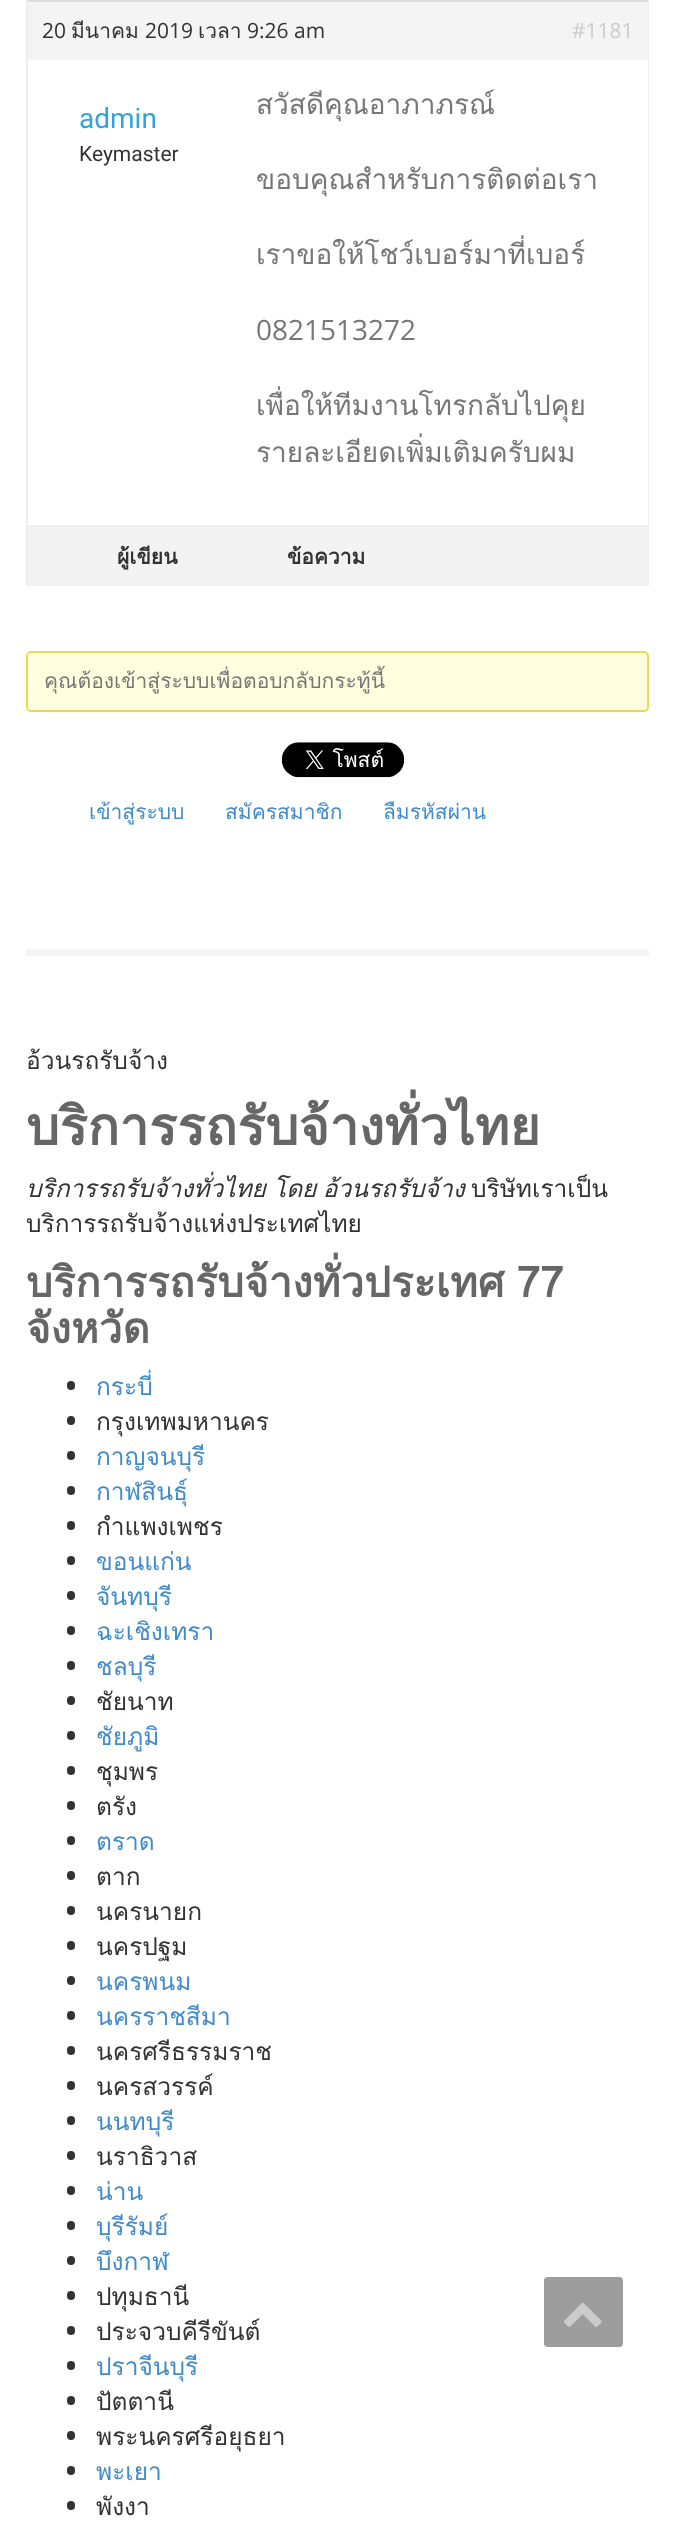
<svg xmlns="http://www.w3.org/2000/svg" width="675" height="2521">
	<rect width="100%" height="100%" fill="#FFFFFF" />
	<rect x="27" y="-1" width="621" height="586" fill="none" stroke="#EEEEEE" stroke-width="2" />
	<rect x="28" y="2" width="620" height="58" fill="#F4F4F4" />
	<rect x="28" y="0" width="620" height="2" fill="#DDDDDD" />
	<text x="42" y="38" font-family="Open Sans" font-size="21" fill="#333333">20</text>
	<text x="71" y="38" font-family="Loma" font-size="21" fill="#333333">มีนาคม</text>
	<text x="145" y="38" font-family="Open Sans" font-size="21" fill="#333333">2019</text>
	<text x="198" y="38" font-family="Loma" font-size="21" fill="#333333">เวลา</text>
	<text x="247" y="38" font-family="Open Sans" font-size="21" fill="#333333">9:26 am</text>
	<text x="572" y="38" font-family="Open Sans" font-size="21" fill="#CCCCCC">#1181</text>
	<rect x="647" y="60" width="1" height="465" fill="#FFFFFF" />
	<text x="79" y="128" font-family="Roboto" font-size="28" fill="#31A3DD">admin</text>
	<text x="79" y="161" font-family="Roboto" font-size="21" fill="#333333">Keymaster</text>
	<g font-family="Loma" font-size="28" fill="#777777">
		<text x="256" y="114">สวัสดีคุณอาภาภรณ์</text>
		<text x="256" y="189">ขอบคุณสำหรับการติดต่อเรา</text>
		<text x="256" y="264">เราขอให้โชว์เบอร์มาที่เบอร์</text>
	</g>
	<text x="256" y="340" font-family="Open Sans" font-size="28" fill="#777777">0821513272</text>
	<g font-family="Loma" font-size="28" fill="#777777">
		<text x="256" y="415">เพื่อให้ทีมงานโทรกลับไปคุย</text>
		<text x="256" y="462">รายละเอียดเพิ่มเติมครับผม</text>
	</g>
	<rect x="28" y="527" width="620" height="58" fill="#F3F3F3" />
	<rect x="28" y="525" width="620" height="2" fill="#EEEEEE" />
	<g font-family="Loma" font-size="21" font-weight="700" fill="#333333">
		<text x="117" y="564">ผู้เขียน</text>
		<text x="287" y="564">ข้อความ</text>
	</g>
	<rect x="27" y="652" width="621" height="59" rx="4" fill="#FFFFE0" stroke="#E6DB55" stroke-width="2" />
	<text x="44" y="688" font-family="Loma" font-size="21" fill="#777777">คุณต้องเข้าสู่ระบบเพื่อตอบกลับกระทู้นี้</text>
	<image x="281" y="742" width="124" height="36" href="assets/img1.png" />
	<g font-family="Loma" font-size="21" fill="#428BCA">
		<text x="89" y="819">เข้าสู่ระบบ</text>
		<text x="225" y="819">สมัครสมาชิก</text>
		<text x="383" y="819">ลืมรหัสผ่าน</text>
	</g>
	<rect x="26" y="949" width="623" height="7" fill="#F5F5F5" />
	<text x="26" y="1069" font-family="Loma" font-size="24.5" fill="#333333">อ้วนรถรับจ้าง</text>
	<text x="26" y="1145" font-family="Loma" font-size="52.5" font-weight="700" fill="#666666">บริการรถรับจ้างทั่วไทย</text>
	<g font-family="Loma" font-size="24.5" font-style="italic" fill="#333333">
		<text x="26" y="1197">บริการรถรับจ้างทั่วไทย</text>
		<text x="273" y="1197" word-spacing="-2">โดย อ้วนรถรับจ้าง</text>
	</g>
	<g font-family="Loma" font-size="24.5" fill="#333333">
		<text x="471" y="1197">บริษัทเราเป็น</text>
		<text x="26" y="1232">บริการรถรับจ้างแห่งประเทศไทย</text>
	</g>
	<g font-family="Loma" font-size="42" font-weight="700" fill="#666666">
		<text x="26" y="1297" word-spacing="-2">บริการรถรับจ้างทั่วประเทศ 77</text>
		<text x="26" y="1343">จังหวัด</text>
	</g>
	<rect x="67" y="1381" width="8" height="9" rx="4" fill="#333333" />
	<text x="96" y="1395" font-family="Loma" font-size="24.5" fill="#428BCA">กระบี่</text>
	<rect x="67" y="1416" width="8" height="9" rx="4" fill="#333333" />
	<text x="96" y="1430" font-family="Loma" font-size="24.5" fill="#333333">กรุงเทพมหานคร</text>
	<rect x="67" y="1451" width="8" height="9" rx="4" fill="#333333" />
	<text x="96" y="1465" font-family="Loma" font-size="24.5" fill="#428BCA">กาญจนบุรี</text>
	<rect x="67" y="1486" width="8" height="9" rx="4" fill="#333333" />
	<text x="96" y="1500" font-family="Loma" font-size="24.5" fill="#428BCA">กาฬสินธุ์</text>
	<rect x="67" y="1521" width="8" height="9" rx="4" fill="#333333" />
	<text x="96" y="1535" font-family="Loma" font-size="24.5" fill="#333333">กำแพงเพชร</text>
	<rect x="67" y="1556" width="8" height="9" rx="4" fill="#333333" />
	<text x="96" y="1570" font-family="Loma" font-size="24.5" fill="#428BCA">ขอนแก่น</text>
	<rect x="67" y="1591" width="8" height="9" rx="4" fill="#333333" />
	<text x="96" y="1605" font-family="Loma" font-size="24.5" fill="#428BCA">จันทบุรี</text>
	<rect x="67" y="1626" width="8" height="9" rx="4" fill="#333333" />
	<text x="96" y="1640" font-family="Loma" font-size="24.5" fill="#428BCA">ฉะเชิงเทรา</text>
	<rect x="67" y="1661" width="8" height="9" rx="4" fill="#333333" />
	<text x="96" y="1675" font-family="Loma" font-size="24.5" fill="#428BCA">ชลบุรี</text>
	<rect x="67" y="1696" width="8" height="9" rx="4" fill="#333333" />
	<text x="96" y="1710" font-family="Loma" font-size="24.5" fill="#333333">ชัยนาท</text>
	<rect x="67" y="1731" width="8" height="9" rx="4" fill="#333333" />
	<text x="96" y="1745" font-family="Loma" font-size="24.5" fill="#428BCA">ชัยภูมิ</text>
	<rect x="67" y="1766" width="8" height="9" rx="4" fill="#333333" />
	<text x="96" y="1780" font-family="Loma" font-size="24.5" fill="#333333">ชุมพร</text>
	<rect x="67" y="1801" width="8" height="9" rx="4" fill="#333333" />
	<text x="96" y="1815" font-family="Loma" font-size="24.5" fill="#333333">ตรัง</text>
	<rect x="67" y="1836" width="8" height="9" rx="4" fill="#333333" />
	<text x="96" y="1850" font-family="Loma" font-size="24.5" fill="#428BCA">ตราด</text>
	<rect x="67" y="1871" width="8" height="9" rx="4" fill="#333333" />
	<text x="96" y="1885" font-family="Loma" font-size="24.5" fill="#333333">ตาก</text>
	<rect x="67" y="1906" width="8" height="9" rx="4" fill="#333333" />
	<text x="96" y="1920" font-family="Loma" font-size="24.5" fill="#333333">นครนายก</text>
	<rect x="67" y="1941" width="8" height="9" rx="4" fill="#333333" />
	<text x="96" y="1955" font-family="Loma" font-size="24.5" fill="#333333">นครปฐม</text>
	<rect x="67" y="1976" width="8" height="9" rx="4" fill="#333333" />
	<text x="96" y="1990" font-family="Loma" font-size="24.5" fill="#428BCA">นครพนม</text>
	<rect x="67" y="2011" width="8" height="9" rx="4" fill="#333333" />
	<text x="96" y="2025" font-family="Loma" font-size="24.5" fill="#428BCA">นครราชสีมา</text>
	<rect x="67" y="2046" width="8" height="9" rx="4" fill="#333333" />
	<text x="96" y="2060" font-family="Loma" font-size="24.5" fill="#333333">นครศรีธรรมราช</text>
	<rect x="67" y="2081" width="8" height="9" rx="4" fill="#333333" />
	<text x="96" y="2095" font-family="Loma" font-size="24.5" fill="#333333">นครสวรรค์</text>
	<rect x="67" y="2116" width="8" height="9" rx="4" fill="#333333" />
	<text x="96" y="2130" font-family="Loma" font-size="24.5" fill="#428BCA">นนทบุรี</text>
	<rect x="67" y="2151" width="8" height="9" rx="4" fill="#333333" />
	<text x="96" y="2165" font-family="Loma" font-size="24.5" fill="#333333">นราธิวาส</text>
	<rect x="67" y="2186" width="8" height="9" rx="4" fill="#333333" />
	<text x="96" y="2200" font-family="Loma" font-size="24.5" fill="#428BCA">น่าน</text>
	<rect x="67" y="2221" width="8" height="9" rx="4" fill="#333333" />
	<text x="96" y="2235" font-family="Loma" font-size="24.5" fill="#428BCA">บุรีรัมย์</text>
	<rect x="67" y="2256" width="8" height="9" rx="4" fill="#333333" />
	<text x="96" y="2270" font-family="Loma" font-size="24.5" fill="#428BCA">บึงกาฬ</text>
	<rect x="67" y="2291" width="8" height="9" rx="4" fill="#333333" />
	<text x="96" y="2305" font-family="Loma" font-size="24.5" fill="#333333">ปทุมธานี</text>
	<rect x="67" y="2326" width="8" height="9" rx="4" fill="#333333" />
	<text x="96" y="2340" font-family="Loma" font-size="24.5" fill="#333333">ประจวบคีรีขันต์</text>
	<rect x="67" y="2361" width="8" height="9" rx="4" fill="#333333" />
	<text x="96" y="2375" font-family="Loma" font-size="24.5" fill="#428BCA">ปราจีนบุรี</text>
	<rect x="67" y="2396" width="8" height="9" rx="4" fill="#333333" />
	<text x="96" y="2410" font-family="Loma" font-size="24.5" fill="#333333">ปัตตานี</text>
	<rect x="67" y="2431" width="8" height="9" rx="4" fill="#333333" />
	<text x="96" y="2445" font-family="Loma" font-size="24.5" fill="#333333">พระนครศรีอยุธยา</text>
	<rect x="67" y="2466" width="8" height="9" rx="4" fill="#333333" />
	<text x="96" y="2480" font-family="Loma" font-size="24.5" fill="#428BCA">พะเยา</text>
	<rect x="67" y="2501" width="8" height="9" rx="4" fill="#333333" />
	<text x="96" y="2515" font-family="Loma" font-size="24.5" fill="#333333">พังงา</text>
	<rect x="544" y="2277" width="79" height="70" rx="4" fill="#9D9D9D" />
	<image x="563" y="2302" width="39" height="25" href="assets/img2.png" />
</svg>
